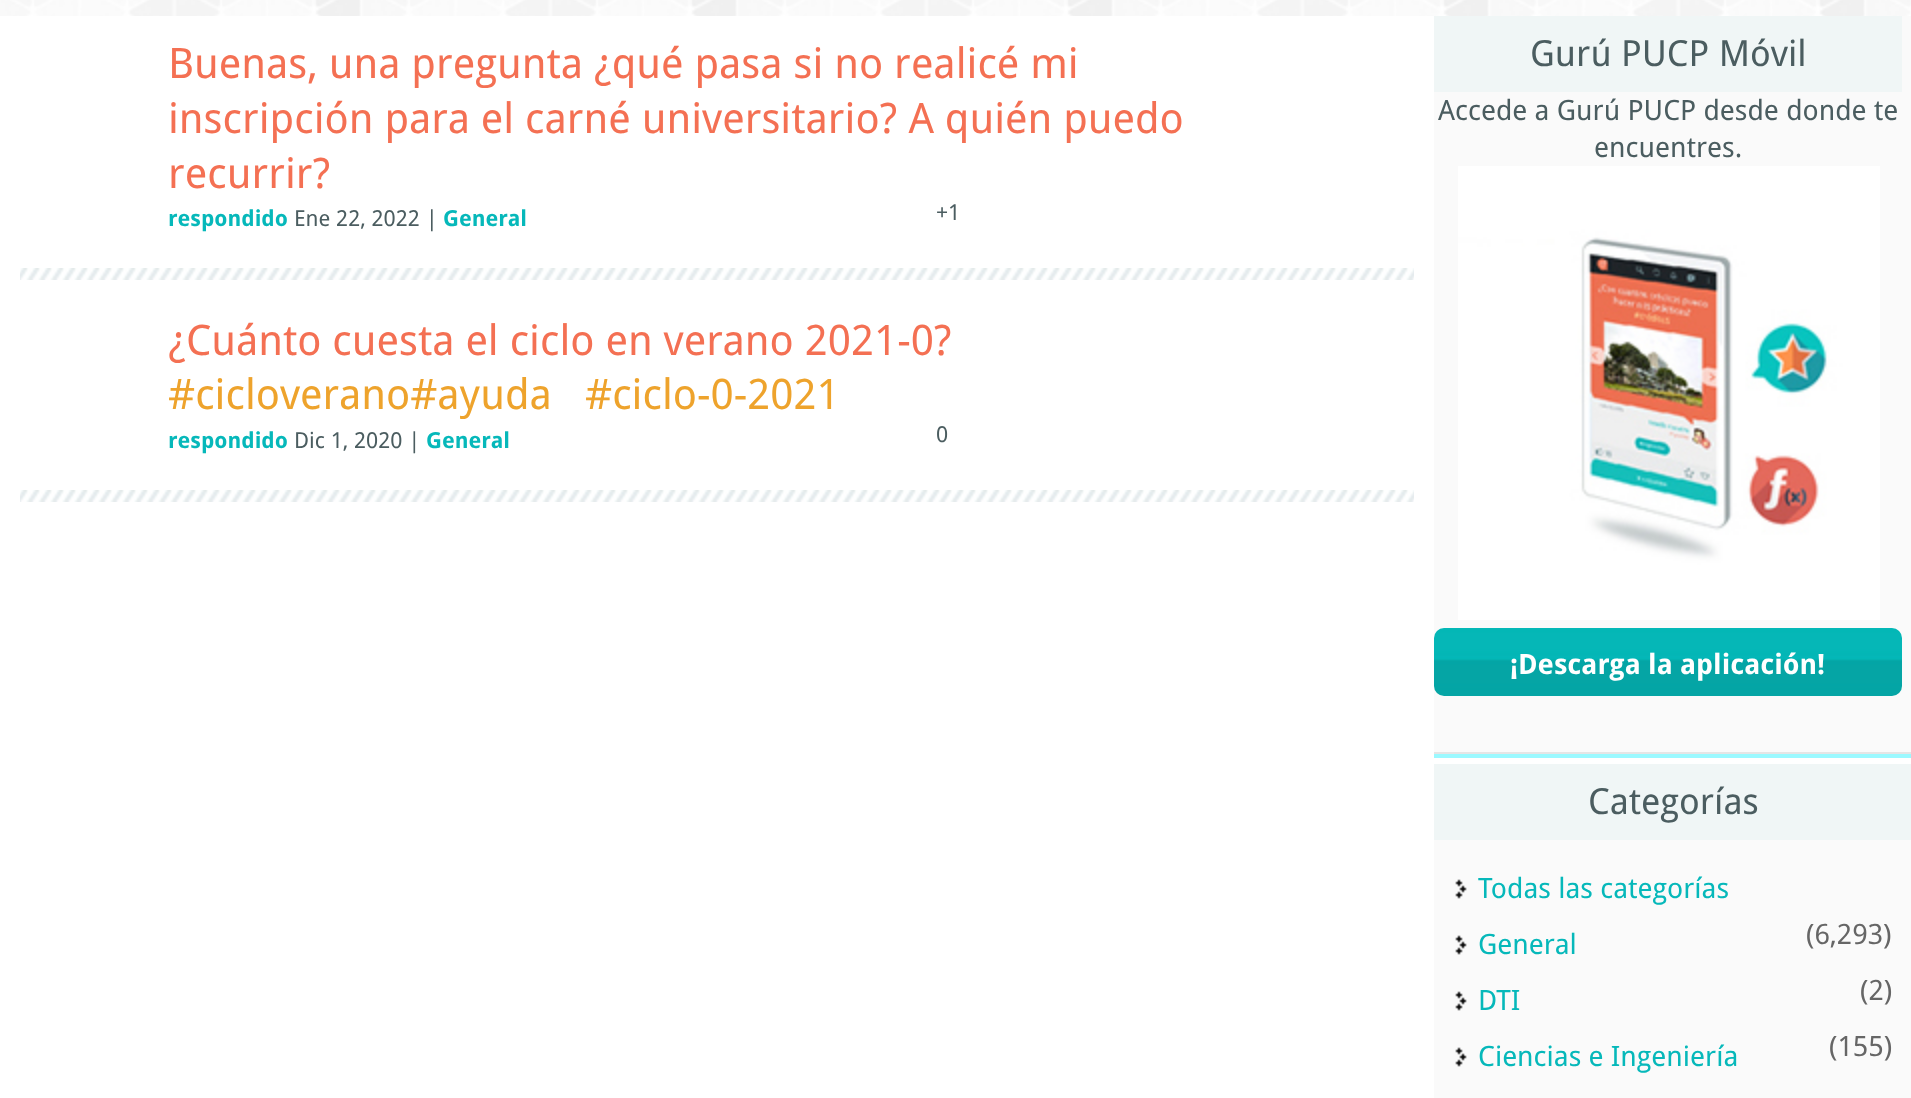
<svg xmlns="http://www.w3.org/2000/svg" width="1911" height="1098">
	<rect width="100%" height="100%" fill="#FFFFFF" />
	<image x="0" y="0" width="1911" height="16" href="assets/img1.png" />
	<image x="20" y="268" width="1394" height="12" href="assets/img2.png" />
	<g font-family="Droid Sans" font-size="42" fill="#F47053">
		<text x="168" y="78">Buenas, una pregunta ¿qué pasa si no realicé mi</text>
		<text x="168" y="133">inscripción para el carné universitario? A quién puedo</text>
		<text x="168" y="188">recurrir?</text>
	</g>
	<text x="168" y="226" font-family="Droid Sans" font-size="22" font-weight="700" fill="#06B8BA">respondido</text>
	<text x="294" y="226" font-family="Droid Sans" font-size="22" fill="#4B5D60">Ene 22, 2022 |</text>
	<text x="443" y="226" font-family="Droid Sans" font-size="22" font-weight="700" fill="#06B8BA">General</text>
	<text x="936" y="220" font-family="Droid Sans" font-size="22" fill="#4B5D60">+1</text>
	<image x="20" y="490" width="1394" height="12" href="assets/img2.png" />
	<text x="168" y="355" font-family="Droid Sans" font-size="42" fill="#F47053">¿Cuánto cuesta el ciclo en verano 2021-0?</text>
	<g font-family="Droid Sans" font-size="42" fill="#EEA32C">
		<text x="168" y="409">#cicloverano#ayuda</text>
		<text x="585" y="409">#ciclo-0-2021</text>
	</g>
	<text x="168" y="448" font-family="Droid Sans" font-size="22" font-weight="700" fill="#06B8BA">respondido</text>
	<text x="294" y="448" font-family="Droid Sans" font-size="22" fill="#4B5D60">Dic 1, 2020 |</text>
	<text x="426" y="448" font-family="Droid Sans" font-size="22" font-weight="700" fill="#06B8BA">General</text>
	<text x="936" y="442" font-family="Droid Sans" font-size="22" fill="#4B5D60">0</text>
	<rect x="1434" y="754" width="477" height="4" fill="#9BF9FF" />
	<rect x="1434" y="16" width="477" height="736" fill="#FAFAFA" />
	<rect x="1434" y="752" width="477" height="2" fill="#E5E5E5" />
	<rect x="1434" y="16" width="468" height="76" fill="#F0F6F6" />
	<text x="1530" y="66" font-family="Droid Sans" font-size="36" fill="#4B5D60">Gurú PUCP Móvil</text>
	<g font-family="Droid Sans" font-size="28" fill="#4B5D60">
		<text x="1438" y="120">Accede a Gurú PUCP desde donde te</text>
		<text x="1594" y="157">encuentres.</text>
	</g>
	<image x="1458" y="166" width="422" height="454" href="assets/img3.png" />
	<image x="1434" y="628" width="468" height="68" href="assets/img4.png" />
	<text x="1510" y="674" font-family="Droid Sans" font-size="28" font-weight="700" fill="#FFFFFF">¡Descarga la aplicación!</text>
	<rect x="1434" y="840" width="477" height="258" fill="#FAFAFA" />
	<rect x="1434" y="764" width="477" height="76" fill="#F0F6F6" />
	<text x="1588" y="814" font-family="Droid Sans" font-size="36" fill="#4B5D60">Categorías</text>
	<image x="1455" y="879" width="12" height="20" href="assets/img5.png" />
	<text x="1478" y="898" font-family="Droid Sans" font-size="28" fill="#06B8BA">Todas las categorías</text>
	<image x="1455" y="935" width="12" height="20" href="assets/img5.png" />
	<text x="1478" y="954" font-family="Droid Sans" font-size="28" fill="#06B8BA">General</text>
	<text x="1806" y="944" font-family="Droid Sans" font-size="28" fill="#666666">(6,293)</text>
	<image x="1455" y="991" width="12" height="20" href="assets/img5.png" />
	<text x="1478" y="1010" font-family="Droid Sans" font-size="28" fill="#06B8BA">DTI</text>
	<text x="1860" y="1000" font-family="Droid Sans" font-size="28" fill="#666666">(2)</text>
	<image x="1455" y="1047" width="12" height="20" href="assets/img5.png" />
	<text x="1478" y="1066" font-family="Droid Sans" font-size="28" fill="#06B8BA">Ciencias e Ingeniería</text>
	<text x="1829" y="1056" font-family="Droid Sans" font-size="28" fill="#666666">(155)</text>
</svg>
